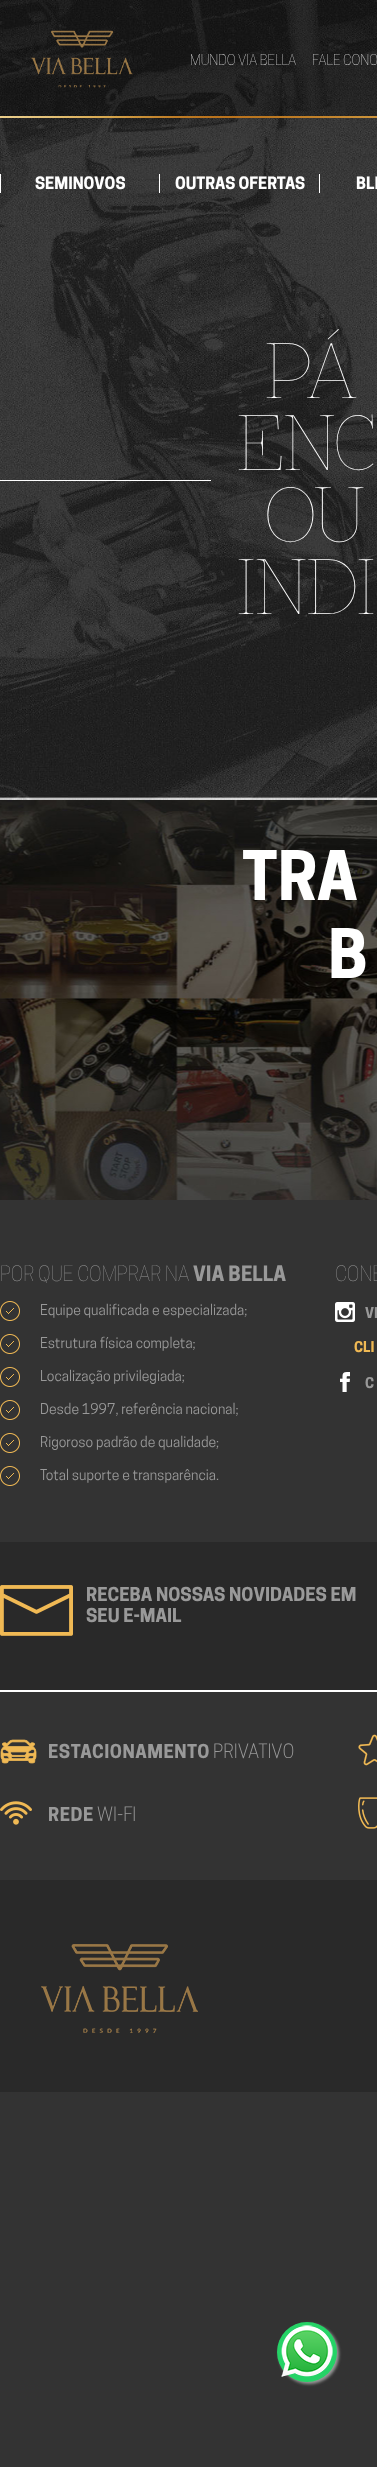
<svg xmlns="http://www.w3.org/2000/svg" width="377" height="2467">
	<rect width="100%" height="100%" fill="#333333" />
	<image x="0" y="0" width="377" height="800" href="assets/img3.png" />
	<rect x="0" y="0" width="377" height="116" fill="#000000" fill-opacity="0.3" />
	<image x="31" y="30" width="102" height="58" href="assets/img1.png" />
	<g font-family="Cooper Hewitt" font-size="14" font-weight="100" fill="#FFFFFF">
		<text x="190" y="65">MUNDO VIA BELLA</text>
		<text x="312" y="65">FALE CONO</text>
	</g>
	<image x="0" y="116" width="377" height="2" href="assets/img2.png" />
	<rect x="159" y="174" width="1" height="19" fill="#FFFFFF" />
	<rect x="0" y="174" width="1" height="19" fill="#FFFFFF" />
	<text x="35" y="189" font-family="Cooper Hewitt" font-size="16" font-weight="700" fill="#FFFFFF">SEMINOVOS</text>
	<rect x="319" y="174" width="1" height="19" fill="#FFFFFF" />
	<g font-family="Cooper Hewitt" font-size="16" font-weight="700" fill="#FFFFFF">
		<text x="175" y="189">OUTRAS OFERTAS</text>
		<text x="356" y="189">BLI</text>
	</g>
	<g font-family="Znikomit" font-size="72" font-weight="100" fill="#FFFFFF">
		<text x="265" y="398">PÁ</text>
		<text x="237" y="470">ENC</text>
	</g>
	<rect x="0" y="480" width="211" height="1" fill="#FFFFFF" />
	<g font-family="Znikomit" font-size="72" font-weight="100" fill="#FFFFFF">
		<text x="265" y="542">OU</text>
		<text x="237" y="614">INDI</text>
	</g>
	<image x="0" y="800" width="377" height="400" href="assets/img4.png" />
	<g font-family="Cooper Hewitt" font-size="64" font-weight="700" fill="#FFFFFF">
		<text x="242" y="900">TRA</text>
		<text x="328" y="978">B</text>
	</g>
	<text x="0" y="1281" font-family="Cooper Hewitt" font-size="20" font-weight="100" fill="#999999">POR QUE COMPRAR NA</text>
	<text x="193" y="1281" font-family="Cooper Hewitt" font-size="20" font-weight="700" fill="#999999">VIA BELLA</text>
	<image x="0" y="1301" width="20" height="20" href="assets/img5.png" />
	<text x="40" y="1315" font-family="Cooper Hewitt" font-size="14" fill="#999999">Equipe qualificada e especializada;</text>
	<image x="0" y="1334" width="20" height="20" href="assets/img5.png" />
	<text x="40" y="1348" font-family="Cooper Hewitt" font-size="14" fill="#999999">Estrutura física completa;</text>
	<image x="0" y="1367" width="20" height="20" href="assets/img5.png" />
	<text x="40" y="1381" font-family="Cooper Hewitt" font-size="14" fill="#999999">Localização privilegiada;</text>
	<image x="0" y="1400" width="20" height="20" href="assets/img5.png" />
	<text x="40" y="1414" font-family="Cooper Hewitt" font-size="14" fill="#999999">Desde 1997, referência nacional;</text>
	<image x="0" y="1433" width="20" height="20" href="assets/img5.png" />
	<text x="40" y="1447" font-family="Cooper Hewitt" font-size="14" fill="#999999">Rigoroso padrão de qualidade;</text>
	<image x="0" y="1466" width="20" height="20" href="assets/img5.png" />
	<text x="40" y="1480" font-family="Cooper Hewitt" font-size="14" fill="#999999">Total suporte e transparência.</text>
	<text x="335" y="1281" font-family="Cooper Hewitt" font-size="20" font-weight="100" fill="#999999">CONE</text>
	<image x="335" y="1302" width="20" height="20" href="assets/img6.png" />
	<text x="365" y="1318" font-family="Cooper Hewitt" font-size="14" font-weight="700" fill="#999999">VI</text>
	<text x="354" y="1352" font-family="Cooper Hewitt" font-size="14" font-weight="700" fill="#F0B954">CLI</text>
	<image x="340" y="1372" width="10" height="20" href="assets/img7.png" />
	<text x="365" y="1388" font-family="Cooper Hewitt" font-size="14" font-weight="700" fill="#999999">C</text>
	<rect x="0" y="1542" width="377" height="148" fill="#292929" />
	<rect x="0" y="1690" width="377" height="2" fill="#FFFFFF" />
	<image x="0" y="1585" width="73" height="51" href="assets/img8.png" />
	<g font-family="Cooper Hewitt" font-size="18" font-weight="700" fill="#999999">
		<text x="86" y="1601">RECEBA NOSSAS NOVIDADES EM</text>
		<text x="86" y="1622">SEU E-MAIL</text>
	</g>
	<image x="0" y="1739" width="37" height="25" href="assets/img9.png" />
	<text x="48" y="1758" font-family="Cooper Hewitt" font-size="18" font-weight="700" letter-spacing="0.5" fill="#999999">ESTACIONAMENTO</text>
	<text x="213" y="1758" font-family="'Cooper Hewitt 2'" font-size="18" font-weight="700" letter-spacing="0.5" fill="#999999">PRIVATIVO</text>
	<image x="0" y="1801" width="32" height="24" href="assets/img10.png" />
	<text x="48" y="1821" font-family="Cooper Hewitt" font-size="18" font-weight="700" letter-spacing="0.5" fill="#999999">REDE</text>
	<text x="97" y="1821" font-family="'Cooper Hewitt 2'" font-size="18" font-weight="700" letter-spacing="0.5" fill="#999999">WI-FI</text>
	<image x="358" y="1734" width="19" height="32" href="assets/img11.png" />
	<image x="358" y="1797" width="19" height="32" href="assets/img12.png" />
	<rect x="0" y="1880" width="377" height="212" fill="#292929" />
	<image x="41" y="1944" width="157" height="89" href="assets/img13.png" />
	<rect x="279" y="2324" width="60" height="60" rx="30" fill="#999999" filter="blur(1.5px)" />
	<circle cx="307" cy="2352" r="30" fill="#25D366" />
	<image x="281" y="2325" width="52" height="52" href="assets/img14.png" />
</svg>
